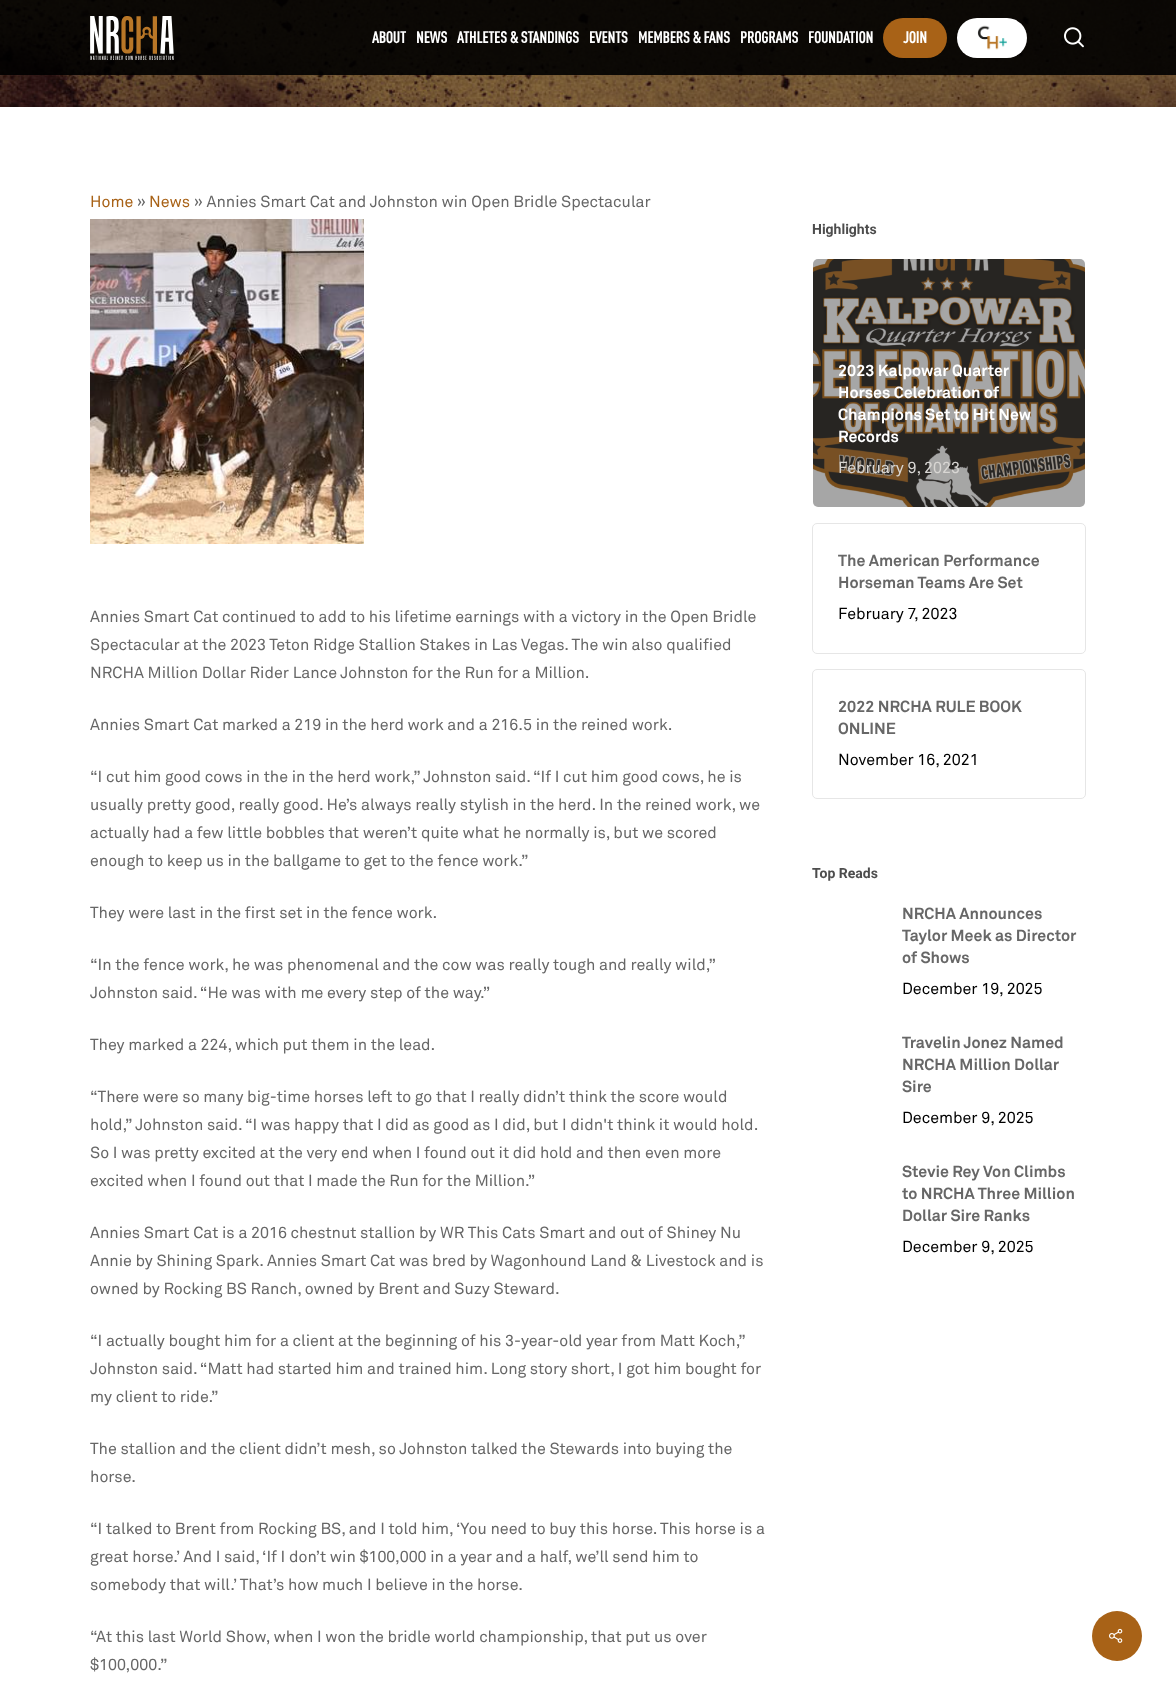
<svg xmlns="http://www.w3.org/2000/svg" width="1176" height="1695">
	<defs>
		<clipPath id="clip1"><rect x="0" y="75" width="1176" height="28" /></clipPath>
	</defs>
	<rect width="100%" height="100%" fill="#FFFFFF" />
	<image x="0" y="0" width="1176" height="107" href="assets/img4.png" />
	<g clip-path="url(#clip1)">
		<rect x="0" y="-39" width="1176" height="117" fill="#000000" fill-opacity="0.15" filter="blur(22.5px)" />
	</g>
	<rect x="0" y="0" width="1176" height="75" fill="#000000" fill-opacity="0.63" />
	<rect x="0" y="0" width="1176" height="75" fill="#000000" fill-opacity="0.75" />
	<image x="90" y="16" width="84" height="44" href="assets/img1.png" />
	<g font-family="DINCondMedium" font-size="16" font-weight="700" fill="#FFFFFF">
		<text x="372" y="43">ABOUT</text>
		<text x="416" y="43">NEWS</text>
		<text x="457" y="43">ATHLETES &amp; STANDINGS</text>
		<text x="589" y="43">EVENTS</text>
		<text x="638" y="43">MEMBERS &amp; FANS</text>
		<text x="740" y="43">PROGRAMS</text>
		<text x="808" y="43">FOUNDATION</text>
	</g>
	<rect x="883" y="18" width="64" height="40" rx="20" fill="#A86217" />
	<text x="903" y="43" font-family="DINCondMedium" font-size="16" font-weight="700" fill="#FFFFFF">JOIN</text>
	<rect x="957" y="18" width="70" height="40" rx="20" fill="#FFFFFF" />
	<image x="977" y="25" width="30" height="25" href="assets/img2.png" />
	<image x="1064" y="27" width="20" height="21" href="assets/img3.png" />
	<text x="90" y="207" font-family="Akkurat" font-size="16" fill="#A86217">Home</text>
	<text x="137" y="207" font-family="Akkurat" font-size="16" fill="#676767">»</text>
	<text x="149" y="207" font-family="Akkurat" font-size="16" fill="#A86217">News</text>
	<text x="194" y="207" font-family="Akkurat" font-size="16" fill="#676767">» Annies Smart Cat and Johnston win Open Bridle Spectacular</text>
	<image x="90" y="219" width="274" height="325" href="assets/img5.png" />
	<g font-family="Akkurat" font-size="16" fill="#676767">
		<text x="90" y="622">Annies Smart Cat continued to add to his lifetime earnings with a victory in the Open Bridle</text>
		<text x="90" y="650">Spectacular at the 2023 Teton Ridge Stallion Stakes in Las Vegas. The win also qualified</text>
		<text x="90" y="678">NRCHA Million Dollar Rider Lance Johnston for the Run for a Million.</text>
		<text x="90" y="730">Annies Smart Cat marked a 219 in the herd work and a 216.5 in the reined work.</text>
		<text x="90" y="782">“I cut him good cows in the in the herd work,” Johnston said. “If I cut him good cows, he is</text>
		<text x="90" y="810">usually pretty good, really good. He’s always really stylish in the herd. In the reined work, we</text>
		<text x="90" y="838">actually had a few little bobbles that weren’t quite what he normally is, but we scored</text>
		<text x="90" y="866">enough to keep us in the ballgame to get to the fence work.”</text>
		<text x="90" y="918">They were last in the first set in the fence work.</text>
		<text x="90" y="970">“In the fence work, he was phenomenal and the cow was really tough and really wild,”</text>
		<text x="90" y="998">Johnston said. “He was with me every step of the way.”</text>
		<text x="90" y="1050">They marked a 224, which put them in the lead.</text>
		<text x="90" y="1102">“There were so many big-time horses left to go that I really didn’t think the score would</text>
		<text x="90" y="1130">hold,” Johnston said. “I was happy that I did as good as I did, but I didn't think it would hold.</text>
		<text x="90" y="1158">So I was pretty excited at the very end when I found out it did hold and then even more</text>
		<text x="90" y="1186">excited when I found out that I made the Run for the Million.”</text>
		<text x="90" y="1238">Annies Smart Cat is a 2016 chestnut stallion by WR This Cats Smart and out of Shiney Nu</text>
		<text x="90" y="1266">Annie by Shining Spark. Annies Smart Cat was bred by Wagonhound Land &amp; Livestock and is</text>
		<text x="90" y="1294">owned by Rocking BS Ranch, owned by Brent and Suzy Steward.</text>
		<text x="90" y="1346">“I actually bought him for a client at the beginning of his 3-year-old year from Matt Koch,”</text>
		<text x="90" y="1374">Johnston said. “Matt had started him and trained him. Long story short, I got him bought for</text>
		<text x="90" y="1402">my client to ride.”</text>
		<text x="90" y="1454">The stallion and the client didn’t mesh, so Johnston talked the Stewards into buying the</text>
		<text x="90" y="1482">horse.</text>
		<text x="90" y="1534">“I talked to Brent from Rocking BS, and I told him, ‘You need to buy this horse. This horse is a</text>
		<text x="90" y="1562">great horse.’ And I said, ‘If I don’t win $100,000 in a year and a half, we’ll send him to</text>
		<text x="90" y="1590">somebody that will.’ That’s how much I believe in the horse.</text>
		<text x="90" y="1642">“At this last World Show, when I won the bridle world championship, that put us over</text>
		<text x="90" y="1670">$100,000.”</text>
	</g>
	<text x="812" y="234" font-family="Roboto" font-size="14" font-weight="700" fill="#4D4D4D">Highlights</text>
	<image x="813" y="259" width="272" height="248" href="assets/img6.png" />
	<rect x="813" y="259" width="272" height="248" rx="5" fill="#000000" fill-opacity="0.35" />
	<g font-family="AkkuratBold" font-size="16" font-weight="700" fill="#FFFFFF">
		<text x="838" y="376">2023 Kalpowar Quarter</text>
		<text x="838" y="398">Horses Celebration of</text>
		<text x="838" y="420">Champions Set to Hit New</text>
		<text x="838" y="442">Records</text>
	</g>
	<text x="838" y="473" font-family="Akkurat" font-size="16" fill="#D8D6D3">February 9, 2023</text>
	<rect x="812.5" y="523.5" width="273" height="130" rx="4.5" fill="none" stroke="#E6E6E6" />
	<g font-family="AkkuratBold" font-size="16" font-weight="700" fill="#676767">
		<text x="838" y="566">The American Performance</text>
		<text x="838" y="588">Horseman Teams Are Set</text>
	</g>
	<text x="838" y="619" font-family="Akkurat" font-size="16" fill="#000000">February 7, 2023</text>
	<rect x="812.5" y="669.5" width="273" height="129" rx="4.5" fill="none" stroke="#E6E6E6" />
	<g font-family="AkkuratBold" font-size="16" font-weight="700" fill="#676767">
		<text x="838" y="712">2022 NRCHA RULE BOOK</text>
		<text x="838" y="734">ONLINE</text>
	</g>
	<text x="838" y="765" font-family="Akkurat" font-size="16" fill="#000000">November 16, 2021</text>
	<text x="812" y="878" font-family="Roboto" font-size="14" font-weight="700" fill="#4D4D4D">Top Reads</text>
	<g font-family="AkkuratBold" font-size="16" font-weight="700" fill="#676767">
		<text x="902" y="919">NRCHA Announces</text>
		<text x="902" y="941">Taylor Meek as Director</text>
		<text x="902" y="963">of Shows</text>
	</g>
	<text x="902" y="994" font-family="Akkurat" font-size="16" fill="#000000">December 19, 2025</text>
	<g font-family="AkkuratBold" font-size="16" font-weight="700" fill="#676767">
		<text x="902" y="1048">Travelin Jonez Named</text>
		<text x="902" y="1070">NRCHA Million Dollar</text>
		<text x="902" y="1092">Sire</text>
	</g>
	<text x="902" y="1123" font-family="Akkurat" font-size="16" fill="#000000">December 9, 2025</text>
	<g font-family="AkkuratBold" font-size="16" font-weight="700" fill="#676767">
		<text x="902" y="1177">Stevie Rey Von Climbs</text>
		<text x="902" y="1199">to NRCHA Three Million</text>
		<text x="902" y="1221">Dollar Sire Ranks</text>
	</g>
	<text x="902" y="1252" font-family="Akkurat" font-size="16" fill="#000000">December 9, 2025</text>
	<circle cx="1117" cy="1636" r="25" fill="#A86217" />
	<image x="1109" y="1628" width="14" height="15" href="assets/img7.png" />
</svg>
